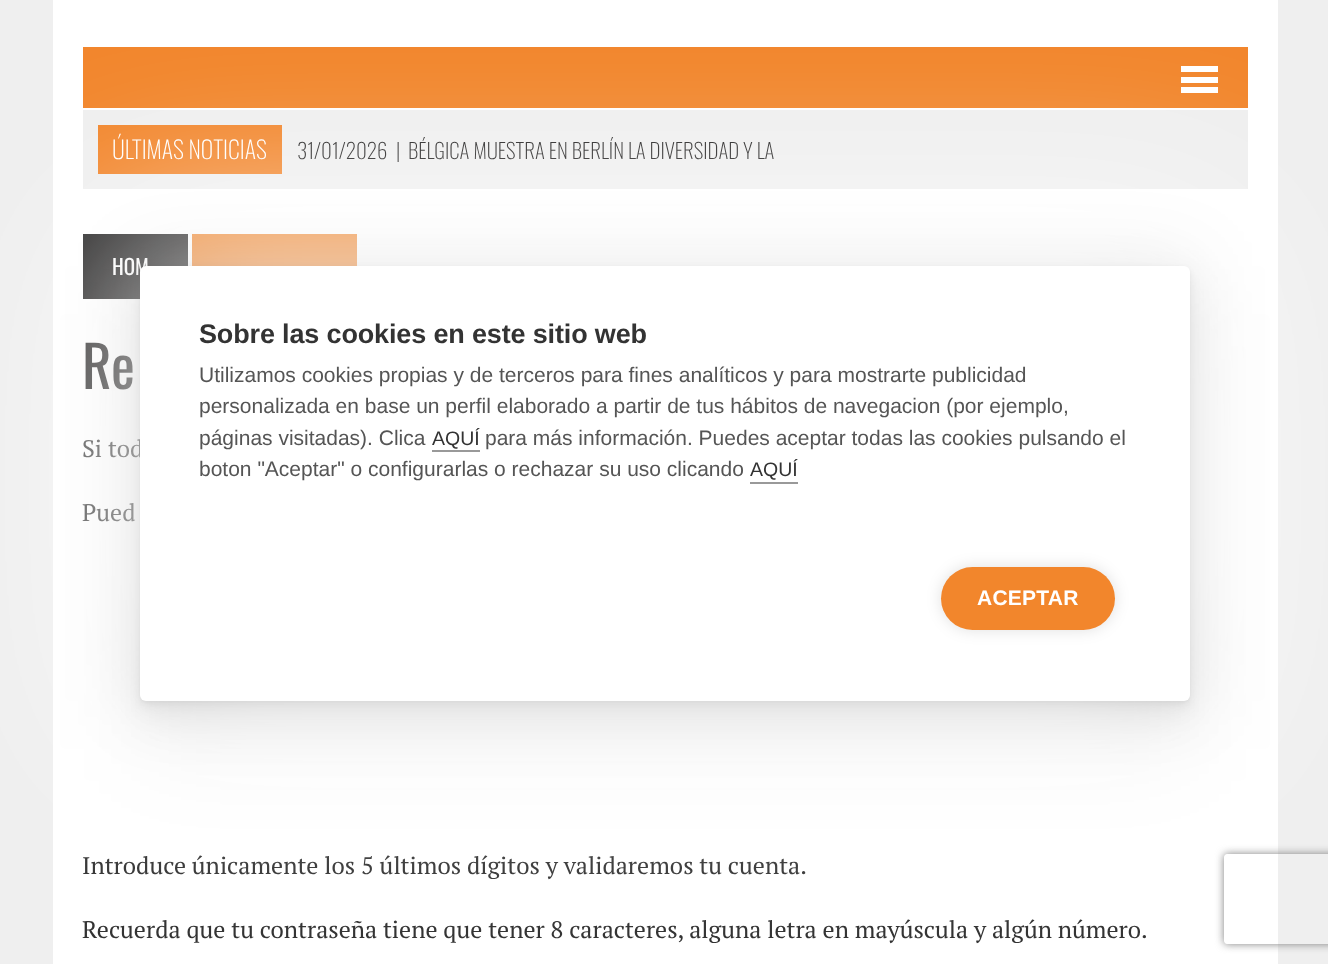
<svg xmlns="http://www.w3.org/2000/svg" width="1328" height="964">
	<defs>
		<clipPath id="clip1"><path d="M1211 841H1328V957H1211ZM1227 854H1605C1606.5 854 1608 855.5 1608 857V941C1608 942.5 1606.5 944 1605 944H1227C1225.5 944 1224 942.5 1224 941V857C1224 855.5 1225.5 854 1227 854Z" clip-rule="evenodd" /></clipPath>
	</defs>
	<rect width="100%" height="100%" fill="#EFEFEF" />
	<rect x="53" y="0" width="1225" height="964" fill="#FFFFFF" />
	<rect x="83" y="47" width="1165" height="61" fill="#F2862C" />
	<rect x="1181" y="66" width="37" height="6" fill="#FFFFFF" />
	<rect x="1181" y="77" width="37" height="6" fill="#FFFFFF" />
	<rect x="1181" y="87" width="37" height="6" fill="#FFFFFF" />
	<rect x="83" y="110" width="1165" height="79" fill="#EFEFEF" />
	<rect x="98" y="125" width="184" height="49" fill="#F2862C" />
	<text x="112" y="159" font-family="Oswald" font-size="24" font-weight="200" fill="#FFFFFF">ÚLTIMAS NOTICIAS</text>
	<g font-family="Oswald" font-size="21" font-weight="200" fill="#1F1E1E">
		<text x="297" y="159">31/01/2026</text>
		<text x="396" y="159">|</text>
		<text x="408" y="159">BÉLGICA MUESTRA EN BERLÍN LA DIVERSIDAD Y LA</text>
	</g>
	<rect x="83" y="234" width="105" height="65" fill="#1F1E1E" />
	<text x="112" y="275" font-family="Oswald" font-size="21" fill="#FFFFFF">HOM</text>
	<rect x="192" y="234" width="165" height="32" fill="#F2862C" />
	<text x="82" y="389" font-family="Oswald" font-size="57" fill="#1F1E1E">Re</text>
	<g font-family="PT Serif" font-size="24" fill="#333333">
		<text x="82" y="457">Si tod</text>
		<text x="82" y="521">Pued</text>
		<text x="82" y="874">Introduce únicamente los 5 últimos dígitos y validaremos tu cuenta.</text>
		<text x="82" y="938">Recuerda que tu contraseña tiene que tener 8 caracteres, alguna letra en mayúscula y algún número.</text>
	</g>
	<rect x="140" y="314" width="1050" height="435" rx="6" fill="#000000" fill-opacity="0.05" filter="blur(48px)" />
	<rect x="140" y="290" width="1050" height="435" rx="6" fill="#000000" fill-opacity="0.05" filter="blur(24px)" />
	<rect x="140" y="278" width="1050" height="435" rx="6" fill="#000000" fill-opacity="0.05" filter="blur(12px)" />
	<rect x="140" y="272" width="1050" height="435" rx="6" fill="#000000" fill-opacity="0.05" filter="blur(6px)" />
	<rect x="140" y="269" width="1050" height="435" rx="6" fill="#000000" fill-opacity="0.05" filter="blur(3px)" />
	<rect x="140" y="267" width="1050" height="435" rx="6" fill="#000000" fill-opacity="0.05" filter="blur(1.5px)" />
	<rect x="140" y="266" width="1050" height="435" rx="6" fill="#000000" fill-opacity="0.15" filter="blur(37.5px)" />
	<rect x="92" y="218" width="1146" height="531" rx="54" fill="#FFFFFF" fill-opacity="0.75" filter="blur(90px)" />
	<rect x="140" y="266" width="1050" height="435" rx="6" fill="#FFFFFF" />
	<text x="199" y="343" font-family="Liberation Sans" font-size="27" font-weight="700" letter-spacing="-0.15" fill="#333333">Sobre las cookies en este sitio web</text>
	<g font-family="Liberation Sans" font-size="21" fill="#555555">
		<text x="199" y="382">Utilizamos cookies propias y de terceros para fines analíticos y para mostrarte publicidad</text>
		<text x="199" y="413">personalizada en base un perfil elaborado a partir de tus hábitos de navegacion (por ejemplo,</text>
		<text x="199" y="445">páginas visitadas). Clica</text>
	</g>
	<text x="432" y="445" font-family="Liberation Sans" font-size="19.5" fill="#333333">AQUÍ</text>
	<rect x="432" y="450" width="48" height="2" fill="#999999" />
	<g font-family="Liberation Sans" font-size="21" fill="#555555">
		<text x="485" y="445">para más información. Puedes aceptar todas las cookies pulsando el</text>
		<text x="199" y="476">boton "Aceptar" o configurarlas o rechazar su uso clicando</text>
	</g>
	<text x="750" y="476" font-family="Liberation Sans" font-size="19.5" fill="#333333">AQUÍ</text>
	<rect x="750" y="482" width="48" height="2" fill="#999999" />
	<rect x="941" y="567" width="174" height="63" rx="31.5" fill="#000000" fill-opacity="0.12" filter="blur(7.5px)" />
	<rect x="941" y="567" width="174" height="63" rx="31.5" fill="#F2862C" />
	<text x="977" y="605" font-family="Liberation Sans" font-size="21" font-weight="700" letter-spacing="0.25" fill="#FFFFFF">ACEPTAR</text>
	<g clip-path="url(#clip1)">
		<rect x="1224" y="854" width="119" height="90" rx="3" fill="#808080" filter="blur(4px)" />
	</g>
</svg>
